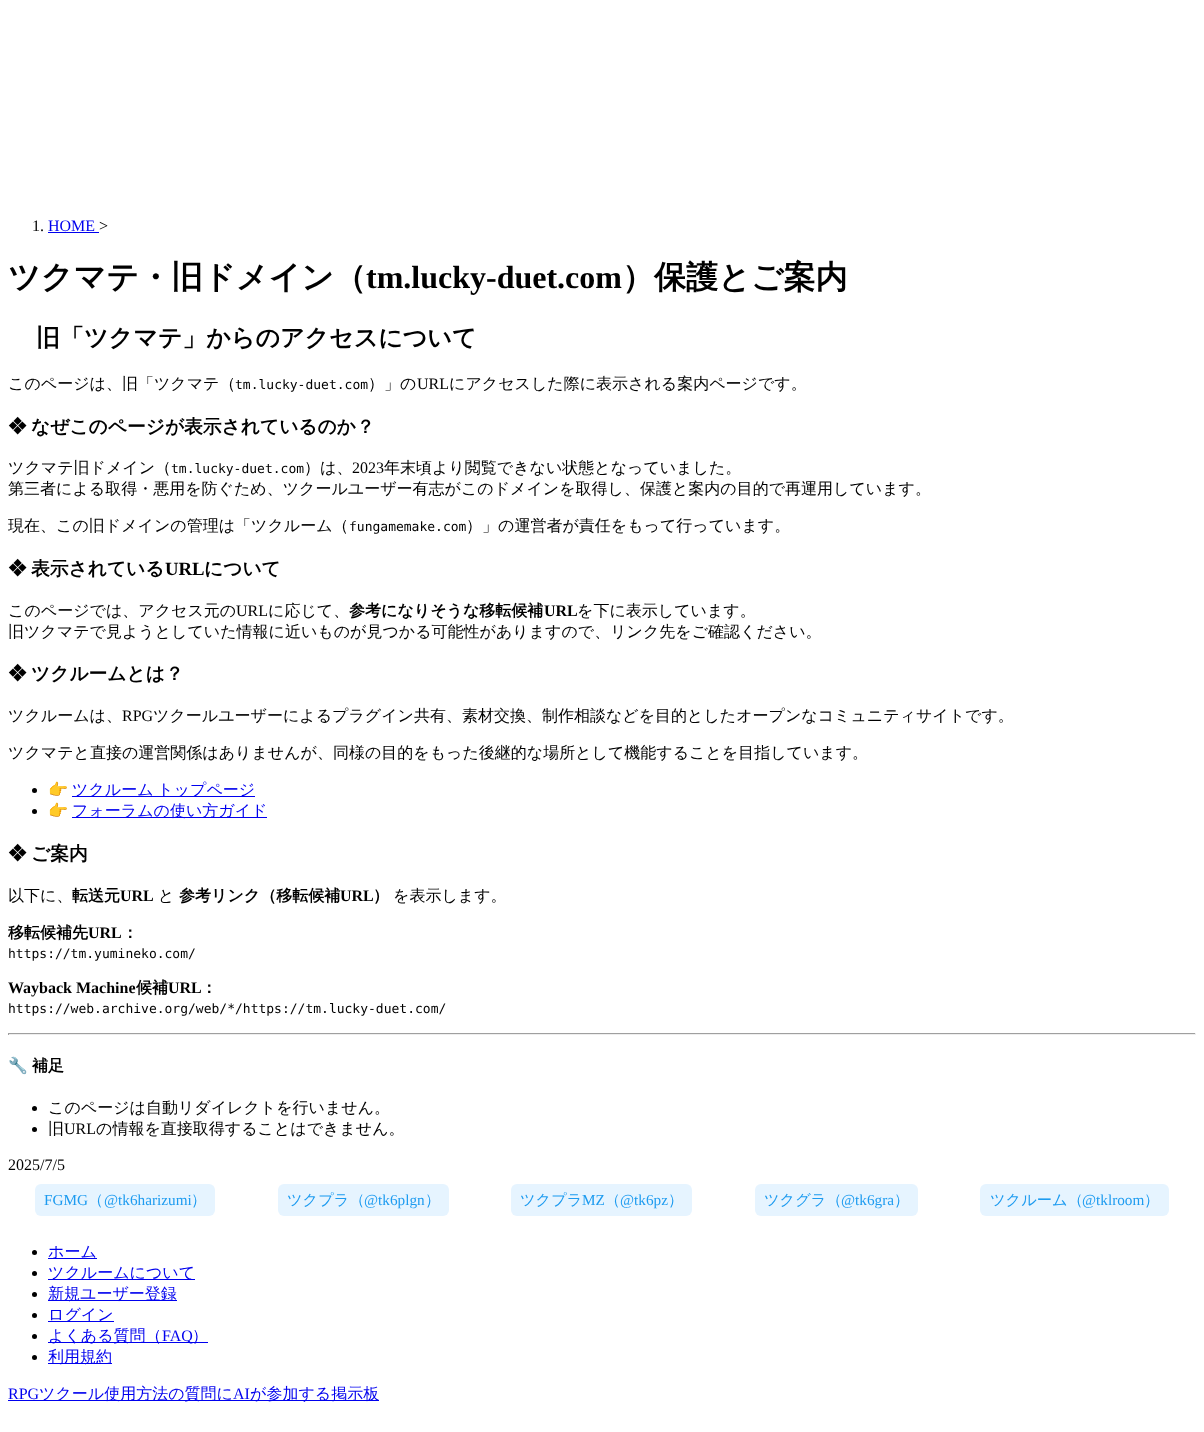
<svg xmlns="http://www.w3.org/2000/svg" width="1204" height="1432">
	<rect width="100%" height="100%" fill="#FFFFFF" />
	<text x="32" y="231" font-family="Liberation Serif" font-size="16" fill="#000000">1.</text>
	<text x="48" y="231" font-family="Liberation Serif" font-size="16" fill="#0000EE">HOME</text>
	<rect x="48" y="232" width="51" height="1" fill="#0000EE" />
	<text x="99" y="231" font-family="Liberation Serif" font-size="16" fill="#000000">&gt;</text>
	<text x="8" y="288" font-family="WenQuanYi Zen Hei" font-size="32" font-weight="700" fill="#000000">ツクマテ・旧ドメイン（</text>
	<text x="366" y="288" font-family="Liberation Serif" font-size="32" font-weight="700" fill="#000000">tm.lucky-duet.com</text>
	<text x="622" y="288" font-family="WenQuanYi Zen Hei" font-size="32" font-weight="700" fill="#000000">）保護とご案内</text>
	<text x="36" y="346" font-family="WenQuanYi Zen Hei" font-size="24" font-weight="700" fill="#000000">旧「ツクマテ」からのアクセスについて</text>
	<text x="8" y="389" font-family="WenQuanYi Zen Hei" font-size="16" font-weight="500" fill="#000000">このページは、旧「ツクマテ（</text>
	<text x="235" y="389" font-family="DejaVu Sans Mono" font-size="13" fill="#000000">tm.lucky-duet.com</text>
	<text x="368" y="389" font-family="WenQuanYi Zen Hei" font-size="16" font-weight="500" fill="#000000">）」の</text>
	<text x="417" y="389" font-family="Liberation Serif" font-size="16" fill="#000000">URL</text>
	<text x="449" y="389" font-family="WenQuanYi Zen Hei" font-size="16" font-weight="500" fill="#000000">にアクセスした際に表示される案内ページです。</text>
	<text x="8" y="433" font-family="IPAPGothic" font-size="18.75" font-weight="700" fill="#000000">❖</text>
	<text x="31" y="433" font-family="WenQuanYi Zen Hei" font-size="18.75" font-weight="700" fill="#000000">なぜこのページが表示されているのか？</text>
	<text x="8" y="473" font-family="WenQuanYi Zen Hei" font-size="16" font-weight="500" fill="#000000">ツクマテ旧ドメイン（</text>
	<text x="171" y="473" font-family="DejaVu Sans Mono" font-size="13" fill="#000000">tm.lucky-duet.com</text>
	<text x="304" y="473" font-family="WenQuanYi Zen Hei" font-size="16" font-weight="500" fill="#000000">）は、</text>
	<text x="352" y="473" font-family="Liberation Serif" font-size="16" fill="#000000">2023</text>
	<g font-family="WenQuanYi Zen Hei" font-size="16" font-weight="500" fill="#000000">
		<text x="384" y="473">年末頃より閲覧できない状態となっていました。</text>
		<text x="8" y="494">第三者による取得・悪用を防ぐため、ツクールユーザー有志がこのドメインを取得し、保護と案内の目的で再運用しています。</text>
		<text x="8" y="531">現在、この旧ドメインの管理は「ツクルーム（</text>
	</g>
	<text x="349" y="531" font-family="DejaVu Sans Mono" font-size="13" fill="#000000">fungamemake.com</text>
	<text x="466" y="531" font-family="WenQuanYi Zen Hei" font-size="16" font-weight="500" fill="#000000">）」の運営者が責任をもって行っています。</text>
	<text x="8" y="575" font-family="IPAPGothic" font-size="18.75" font-weight="700" fill="#000000">❖</text>
	<text x="31" y="575" font-family="WenQuanYi Zen Hei" font-size="18.75" font-weight="700" fill="#000000">表示されている</text>
	<text x="165" y="575" font-family="Liberation Serif" font-size="18.75" font-weight="700" fill="#000000">URL</text>
	<text x="204" y="575" font-family="WenQuanYi Zen Hei" font-size="18.75" font-weight="700" fill="#000000">について</text>
	<text x="8" y="616" font-family="WenQuanYi Zen Hei" font-size="16" font-weight="500" fill="#000000">このページでは、アクセス元の</text>
	<text x="236" y="616" font-family="Liberation Serif" font-size="16" fill="#000000">URL</text>
	<text x="268" y="616" font-family="WenQuanYi Zen Hei" font-size="16" font-weight="500" fill="#000000">に応じて、</text>
	<text x="349" y="616" font-family="WenQuanYi Zen Hei" font-size="16" font-weight="700" fill="#000000">参考になりそうな移転候補</text>
	<text x="544" y="616" font-family="Liberation Serif" font-size="16" font-weight="700" fill="#000000">URL</text>
	<g font-family="WenQuanYi Zen Hei" font-size="16" font-weight="500" fill="#000000">
		<text x="577" y="616">を下に表示しています。</text>
		<text x="8" y="637">旧ツクマテで見ようとしていた情報に近いものが見つかる可能性がありますので、リンク先をご確認ください。</text>
	</g>
	<text x="8" y="680" font-family="IPAPGothic" font-size="18.75" font-weight="700" fill="#000000">❖</text>
	<text x="31" y="680" font-family="WenQuanYi Zen Hei" font-size="18.75" font-weight="700" fill="#000000">ツクルームとは？</text>
	<text x="8" y="721" font-family="WenQuanYi Zen Hei" font-size="16" font-weight="500" fill="#000000">ツクルームは、</text>
	<text x="122" y="721" font-family="Liberation Serif" font-size="16" fill="#000000">RPG</text>
	<g font-family="WenQuanYi Zen Hei" font-size="16" font-weight="500" fill="#000000">
		<text x="153" y="721">ツクールユーザーによるプラグイン共有、素材交換、制作相談などを目的としたオープンなコミュニティサイトです。</text>
		<text x="8" y="758">ツクマテと直接の運営関係はありませんが、同様の目的をもった後継的な場所として機能することを目指しています。</text>
	</g>
	<circle cx="34.5" cy="790.5" r="2.5" fill="#000000" />
	<text x="48" y="795" font-family="Noto Color Emoji" font-size="16" fill="#000000">👉</text>
	<rect x="72" y="796" width="183" height="1" fill="#0000EE" />
	<text x="72" y="795" word-spacing="-1" font-family="WenQuanYi Zen Hei" font-size="16" font-weight="500" fill="#0000EE">ツクルーム トップページ</text>
	<circle cx="34.5" cy="811.5" r="2.5" fill="#000000" />
	<text x="48" y="816" font-family="Noto Color Emoji" font-size="16" fill="#000000">👉</text>
	<rect x="72" y="817" width="195" height="1" fill="#0000EE" />
	<text x="72" y="816" font-family="WenQuanYi Zen Hei" font-size="16" font-weight="500" fill="#0000EE">フォーラムの使い方ガイド</text>
	<text x="8" y="860" font-family="IPAPGothic" font-size="18.75" font-weight="700" fill="#000000">❖</text>
	<text x="31" y="860" font-family="WenQuanYi Zen Hei" font-size="18.75" font-weight="700" fill="#000000">ご案内</text>
	<text x="8" y="901" font-family="WenQuanYi Zen Hei" font-size="16" font-weight="500" fill="#000000">以下に、</text>
	<text x="72" y="901" font-family="WenQuanYi Zen Hei" font-size="16" font-weight="700" fill="#000000">転送元</text>
	<text x="120" y="901" font-family="Liberation Serif" font-size="16" font-weight="700" fill="#000000">URL</text>
	<text x="158" y="901" font-family="WenQuanYi Zen Hei" font-size="16" font-weight="500" fill="#000000">と</text>
	<text x="179" y="901" font-family="WenQuanYi Zen Hei" font-size="16" font-weight="700" fill="#000000">参考リンク（移転候補</text>
	<text x="340" y="901" font-family="Liberation Serif" font-size="16" font-weight="700" fill="#000000">URL</text>
	<text x="373" y="901" font-family="WenQuanYi Zen Hei" font-size="16" font-weight="700" fill="#000000">）</text>
	<text x="393" y="901" font-family="WenQuanYi Zen Hei" font-size="16" font-weight="500" fill="#000000">を表示します。</text>
	<text x="8" y="938" font-family="WenQuanYi Zen Hei" font-size="16" font-weight="700" fill="#000000">移転候補先</text>
	<text x="88" y="938" font-family="Liberation Serif" font-size="16" font-weight="700" fill="#000000">URL</text>
	<text x="122" y="938" font-family="WenQuanYi Zen Hei" font-size="16" font-weight="700" fill="#000000">：</text>
	<text x="8" y="958" font-family="DejaVu Sans Mono" font-size="13" fill="#000000">https://tm.yumineko.com/</text>
	<text x="8" y="993" font-family="Liberation Serif" font-size="16" font-weight="700" fill="#000000">Wayback Machine</text>
	<text x="136" y="993" font-family="WenQuanYi Zen Hei" font-size="16" font-weight="700" fill="#000000">候補</text>
	<text x="168" y="993" font-family="Liberation Serif" font-size="16" font-weight="700" fill="#000000">URL</text>
	<text x="201" y="993" font-family="WenQuanYi Zen Hei" font-size="16" font-weight="700" fill="#000000">：</text>
	<text x="8" y="1013" font-family="DejaVu Sans Mono" font-size="13" fill="#000000">https://web.archive.org/web/*/https://tm.lucky-duet.com/</text>
	<rect x="8" y="1033" width="1188" height="1" fill="#9F9F9F" />
	<rect x="1195" y="1033" width="1" height="2" fill="#EEEEEE" />
	<rect x="8" y="1034" width="1188" height="1" fill="#EEEEEE" />
	<rect x="8" y="1033" width="1" height="2" fill="#9F9F9F" />
	<text x="8" y="1071" font-family="Noto Color Emoji" font-size="16" font-weight="700" fill="#000000">🔧</text>
	<text x="32" y="1071" font-family="WenQuanYi Zen Hei" font-size="16" font-weight="700" fill="#000000">補足</text>
	<circle cx="34.5" cy="1108.5" r="2.5" fill="#000000" />
	<text x="48" y="1113" font-family="WenQuanYi Zen Hei" font-size="16" font-weight="500" fill="#000000">このページは自動リダイレクトを行いません。</text>
	<circle cx="34.5" cy="1129.5" r="2.5" fill="#000000" />
	<text x="48" y="1134" font-family="WenQuanYi Zen Hei" font-size="16" font-weight="500" fill="#000000">旧</text>
	<text x="64" y="1134" font-family="Liberation Serif" font-size="16" fill="#000000">URL</text>
	<text x="96" y="1134" font-family="WenQuanYi Zen Hei" font-size="16" font-weight="500" fill="#000000">の情報を直接取得することはできません。</text>
	<text x="8" y="1170" font-family="Liberation Serif" font-size="16" fill="#000000">2025/7/5</text>
	<rect x="35" y="1184" width="180" height="32" rx="6" fill="#E6F4FF" />
	<text x="44" y="1205" font-family="Liberation Serif" font-size="15.25" fill="#1D9BF0">FGMG</text>
	<text x="88" y="1205" font-family="WenQuanYi Zen Hei" font-size="15.25" font-weight="500" fill="#1D9BF0">（</text>
	<text x="104" y="1205" font-family="Liberation Serif" font-size="15.25" fill="#1D9BF0">@tk6harizumi</text>
	<text x="191" y="1205" font-family="WenQuanYi Zen Hei" font-size="15.25" font-weight="500" fill="#1D9BF0">）</text>
	<rect x="278" y="1184" width="171" height="32" rx="6" fill="#E6F4FF" />
	<text x="287" y="1205" font-family="WenQuanYi Zen Hei" font-size="15.25" font-weight="500" fill="#1D9BF0">ツクプラ（</text>
	<text x="364" y="1205" font-family="Liberation Serif" font-size="15.25" fill="#1D9BF0">@tk6plgn</text>
	<text x="425" y="1205" font-family="WenQuanYi Zen Hei" font-size="15.25" font-weight="500" fill="#1D9BF0">）</text>
	<rect x="511" y="1184" width="181" height="32" rx="6" fill="#E6F4FF" />
	<text x="520" y="1205" font-family="WenQuanYi Zen Hei" font-size="15.25" font-weight="500" fill="#1D9BF0">ツクプラ</text>
	<text x="582" y="1205" font-family="Liberation Serif" font-size="15.25" fill="#1D9BF0">MZ</text>
	<text x="605" y="1205" font-family="WenQuanYi Zen Hei" font-size="15.25" font-weight="500" fill="#1D9BF0">（</text>
	<text x="620" y="1205" font-family="Liberation Serif" font-size="15.25" fill="#1D9BF0">@tk6pz</text>
	<text x="668" y="1205" font-family="WenQuanYi Zen Hei" font-size="15.25" font-weight="500" fill="#1D9BF0">）</text>
	<rect x="755" y="1184" width="163" height="32" rx="6" fill="#E6F4FF" />
	<text x="764" y="1205" font-family="WenQuanYi Zen Hei" font-size="15.25" font-weight="500" fill="#1D9BF0">ツクグラ（</text>
	<text x="841" y="1205" font-family="Liberation Serif" font-size="15.25" fill="#1D9BF0">@tk6gra</text>
	<text x="894" y="1205" font-family="WenQuanYi Zen Hei" font-size="15.25" font-weight="500" fill="#1D9BF0">）</text>
	<rect x="980" y="1184" width="189" height="32" rx="6" fill="#E6F4FF" />
	<text x="990" y="1205" font-family="WenQuanYi Zen Hei" font-size="15.25" font-weight="500" fill="#1D9BF0">ツクルーム（</text>
	<text x="1082" y="1205" font-family="Liberation Serif" font-size="15.25" fill="#1D9BF0">@tklroom</text>
	<text x="1144" y="1205" font-family="WenQuanYi Zen Hei" font-size="15.25" font-weight="500" fill="#1D9BF0">）</text>
	<circle cx="34.5" cy="1252.5" r="2.5" fill="#000000" />
	<rect x="48" y="1258" width="49" height="1" fill="#0000EE" />
	<text x="48" y="1257" font-family="WenQuanYi Zen Hei" font-size="16" font-weight="500" fill="#0000EE">ホーム</text>
	<circle cx="34.5" cy="1273.5" r="2.5" fill="#000000" />
	<rect x="48" y="1279" width="147" height="1" fill="#0000EE" />
	<text x="48" y="1278" font-family="WenQuanYi Zen Hei" font-size="16" font-weight="500" fill="#0000EE">ツクルームについて</text>
	<circle cx="34.5" cy="1294.5" r="2.5" fill="#000000" />
	<rect x="48" y="1300" width="129" height="1" fill="#0000EE" />
	<text x="48" y="1299" font-family="WenQuanYi Zen Hei" font-size="16" font-weight="500" fill="#0000EE">新規ユーザー登録</text>
	<circle cx="34.5" cy="1315.5" r="2.5" fill="#000000" />
	<rect x="48" y="1321" width="66" height="1" fill="#0000EE" />
	<text x="48" y="1320" font-family="WenQuanYi Zen Hei" font-size="16" font-weight="500" fill="#0000EE">ログイン</text>
	<circle cx="34.5" cy="1336.5" r="2.5" fill="#000000" />
	<rect x="48" y="1342" width="160" height="1" fill="#0000EE" />
	<text x="48" y="1341" font-family="WenQuanYi Zen Hei" font-size="16" font-weight="500" fill="#0000EE">よくある質問（</text>
	<text x="162" y="1341" font-family="Liberation Serif" font-size="16" fill="#0000EE">FAQ</text>
	<text x="192" y="1341" font-family="WenQuanYi Zen Hei" font-size="16" font-weight="500" fill="#0000EE">）</text>
	<circle cx="34.5" cy="1357.5" r="2.5" fill="#000000" />
	<rect x="48" y="1363" width="64" height="1" fill="#0000EE" />
	<text x="48" y="1362" font-family="WenQuanYi Zen Hei" font-size="16" font-weight="500" fill="#0000EE">利用規約</text>
	<text x="8" y="1399" font-family="Liberation Serif" font-size="16" fill="#0000EE">RPG</text>
	<rect x="8" y="1400" width="371" height="1" fill="#0000EE" />
	<text x="39" y="1399" font-family="WenQuanYi Zen Hei" font-size="16" font-weight="500" fill="#0000EE">ツクール使用方法の質問に</text>
	<text x="233" y="1399" font-family="Liberation Serif" font-size="16" fill="#0000EE">AI</text>
	<text x="250" y="1399" font-family="WenQuanYi Zen Hei" font-size="16" font-weight="500" fill="#0000EE">が参加する掲示板</text>
</svg>
